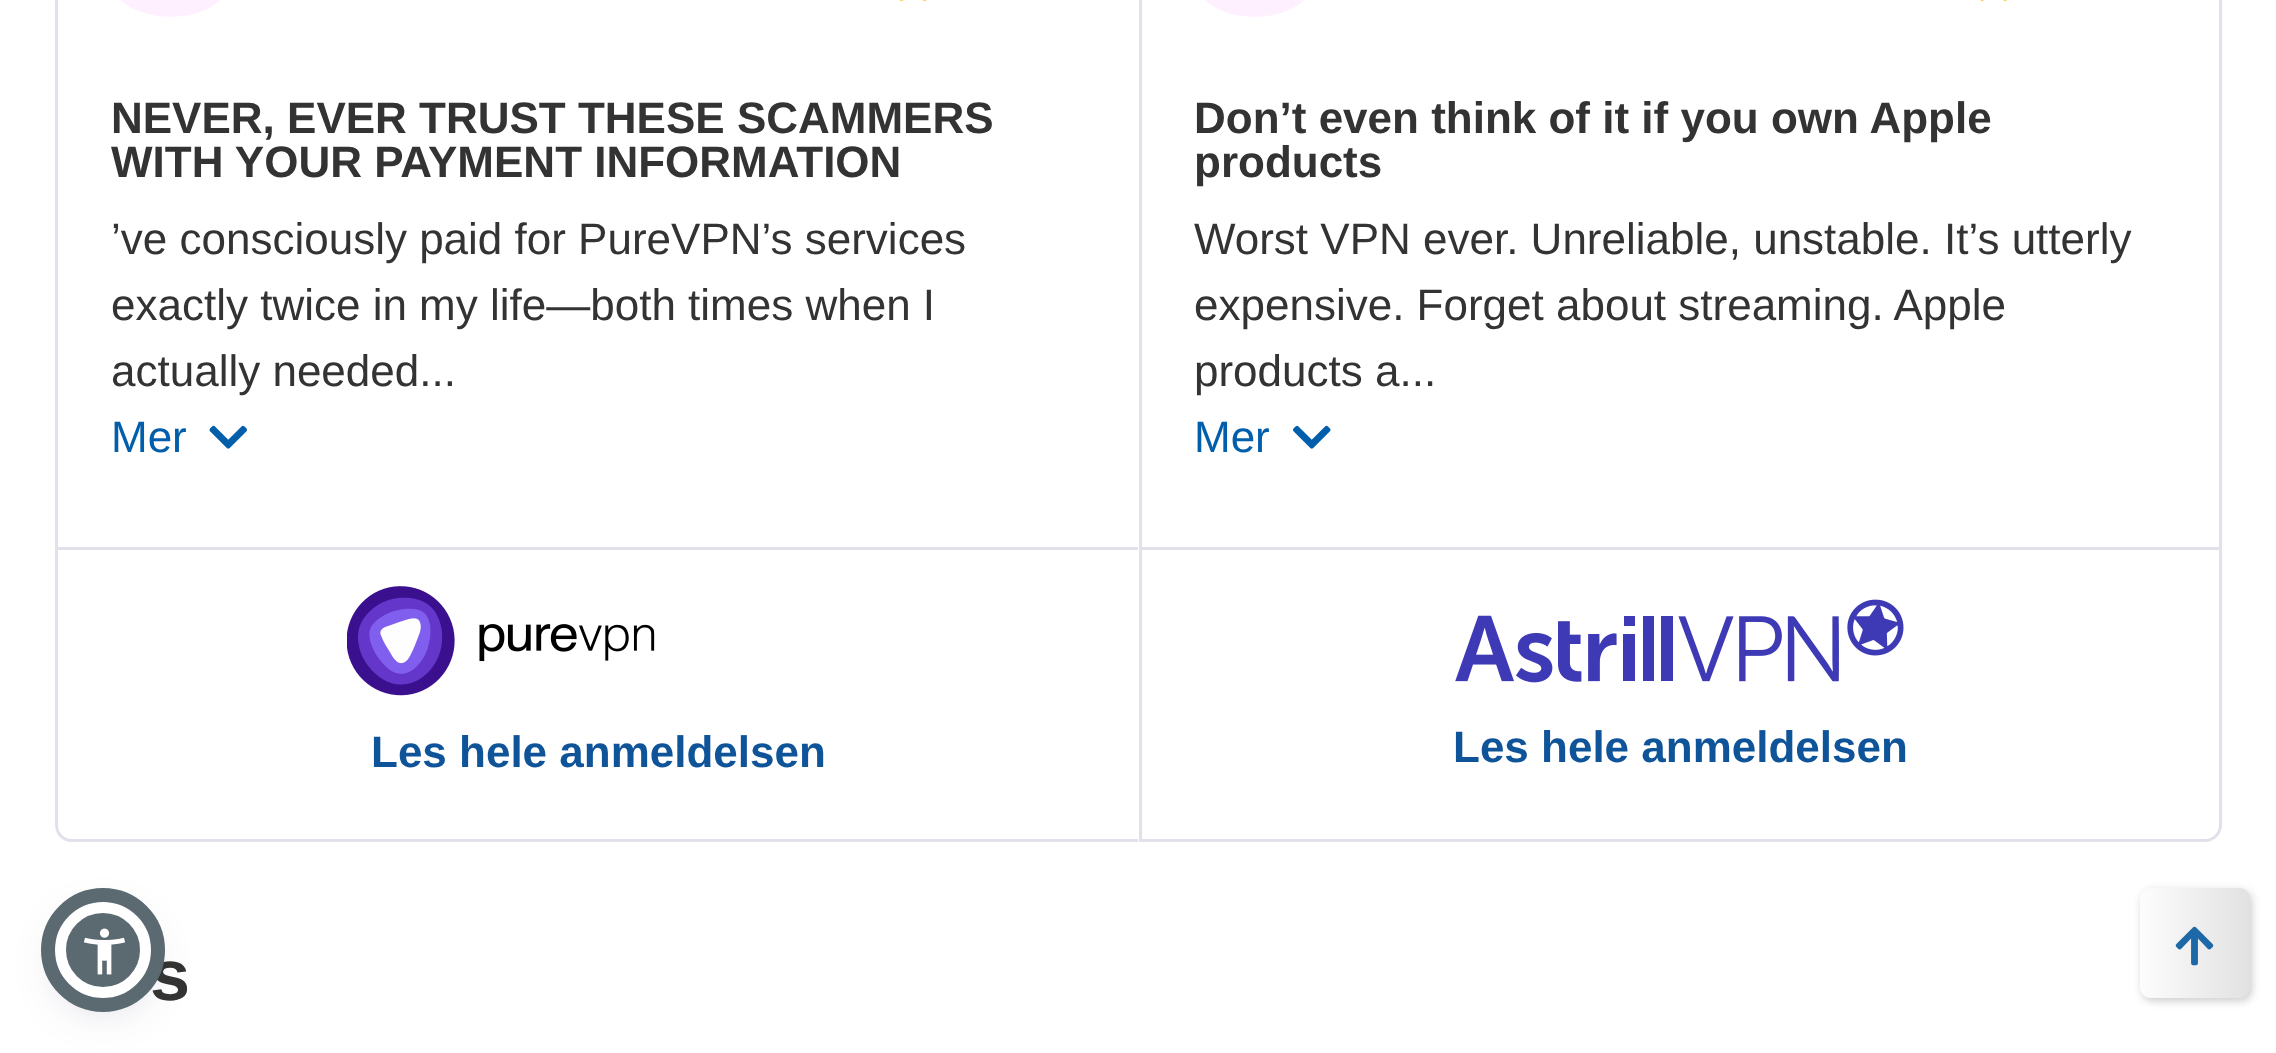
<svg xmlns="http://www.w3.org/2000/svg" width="2276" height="1053">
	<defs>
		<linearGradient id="g1" gradientUnits="userSpaceOnUse" x1="2140" y1="943" x2="2250" y2="943"><stop offset="0" stop-color="#FDFDFD" /><stop offset="1" stop-color="#E1E1E1" /></linearGradient>
	</defs>
	<rect width="100%" height="100%" fill="#FFFFFF" />
	<rect x="55" y="908" width="96" height="96" rx="48" fill="#5D6494" fill-opacity="0.2" filter="blur(5.5px)" />
	<rect x="55" y="916" width="96" height="96" rx="48" fill="#252C61" fill-opacity="0.15" filter="blur(20.5px)" />
	<circle cx="103" cy="950" r="42.5" fill="#5B6A71" stroke="#FFFFFF" stroke-width="11" />
	<image x="83" y="928" width="43" height="47" href="assets/img1.png" />
	<text x="150" y="1000" font-family="Liberation Sans" font-size="72" font-weight="700" fill="#333333">s</text>
	<circle cx="103" cy="950" r="55" fill="none" stroke="#5B6A71" stroke-width="14" />
	<rect x="55" y="0" width="3" height="547" fill="#E1E1EC" />
	<rect x="110" y="-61" width="121" height="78" rx="60.5" fill="#FFF0FF" />
	<image x="900" y="0" width="26" height="2" href="assets/img2.png" />
	<g font-family="Liberation Sans" font-size="44" font-weight="700" fill="#333333">
		<text x="111" y="133">NEVER, EVER TRUST THЕSE SCAMMERS</text>
		<text x="111" y="177">WITH YOUR PAYMENT INFORMATION</text>
	</g>
	<g font-family="Liberation Sans" font-size="44" fill="#333333">
		<text x="111" y="254">’ve consciously paid for PureVPN’s services</text>
		<text x="111" y="320">exactly twice in my life—both times when I</text>
		<text x="111" y="386">actually needed...</text>
	</g>
	<text x="111" y="452" font-family="Liberation Sans" font-size="44" fill="#005EAB">Mer</text>
	<image x="209" y="425" width="38" height="24" href="assets/img3.png" />
	<rect x="2219" y="0" width="3" height="547" fill="#E1E1EC" />
	<rect x="1139" y="0" width="3" height="547" fill="#E1E1EC" />
	<rect x="1194" y="-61" width="121" height="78" rx="60.5" fill="#FFF0FF" />
	<image x="1980" y="0" width="27" height="2" href="assets/img4.png" />
	<g font-family="Liberation Sans" font-size="44" font-weight="700" fill="#333333">
		<text x="1194" y="133">Don’t even think of it if you own Apple</text>
		<text x="1194" y="177">products</text>
	</g>
	<g font-family="Liberation Sans" font-size="44" fill="#333333">
		<text x="1194" y="254">Worst VPN ever. Unreliable, unstable. It’s utterly</text>
		<text x="1194" y="320">expensive. Forget about streaming. Apple</text>
		<text x="1194" y="386">products a...</text>
	</g>
	<text x="1194" y="452" font-family="Liberation Sans" font-size="44" fill="#005EAB">Mer</text>
	<image x="1293" y="425" width="38" height="24" href="assets/img5.png" />
	<path d="M55 547H1138V842H72C62 842 55 834 55 825ZM58 550H1138V839H72C64 839 58 833 58 825Z" fill="#E1E1EC" fill-rule="evenodd" />
	<image x="347" y="586" width="308" height="110" href="assets/img6.png" />
	<text x="371" y="767" font-family="Liberation Sans" font-size="44" font-weight="700" fill="#0F5499">Les hele anmeldelsen</text>
	<path d="M1140.5 548.5H2220.5V825C2220.5 833.5 2213.5 840.5 2205 840.5H1140.5Z" fill="none" stroke="#E1E1EC" stroke-width="3" />
	<image x="1455" y="599" width="449" height="84" href="assets/img7.png" />
	<text x="1453" y="762" font-family="Liberation Sans" font-size="44" font-weight="700" fill="#0F5499">Les hele anmeldelsen</text>
	<rect x="2142" y="891" width="110" height="110" rx="11" fill="#CCCCCC" filter="blur(4px)" />
	<rect x="2140" y="888" width="110" height="110" rx="11" fill="url(#g1)" />
	<image x="2175" y="926" width="39" height="40" href="assets/img8.png" />
</svg>
